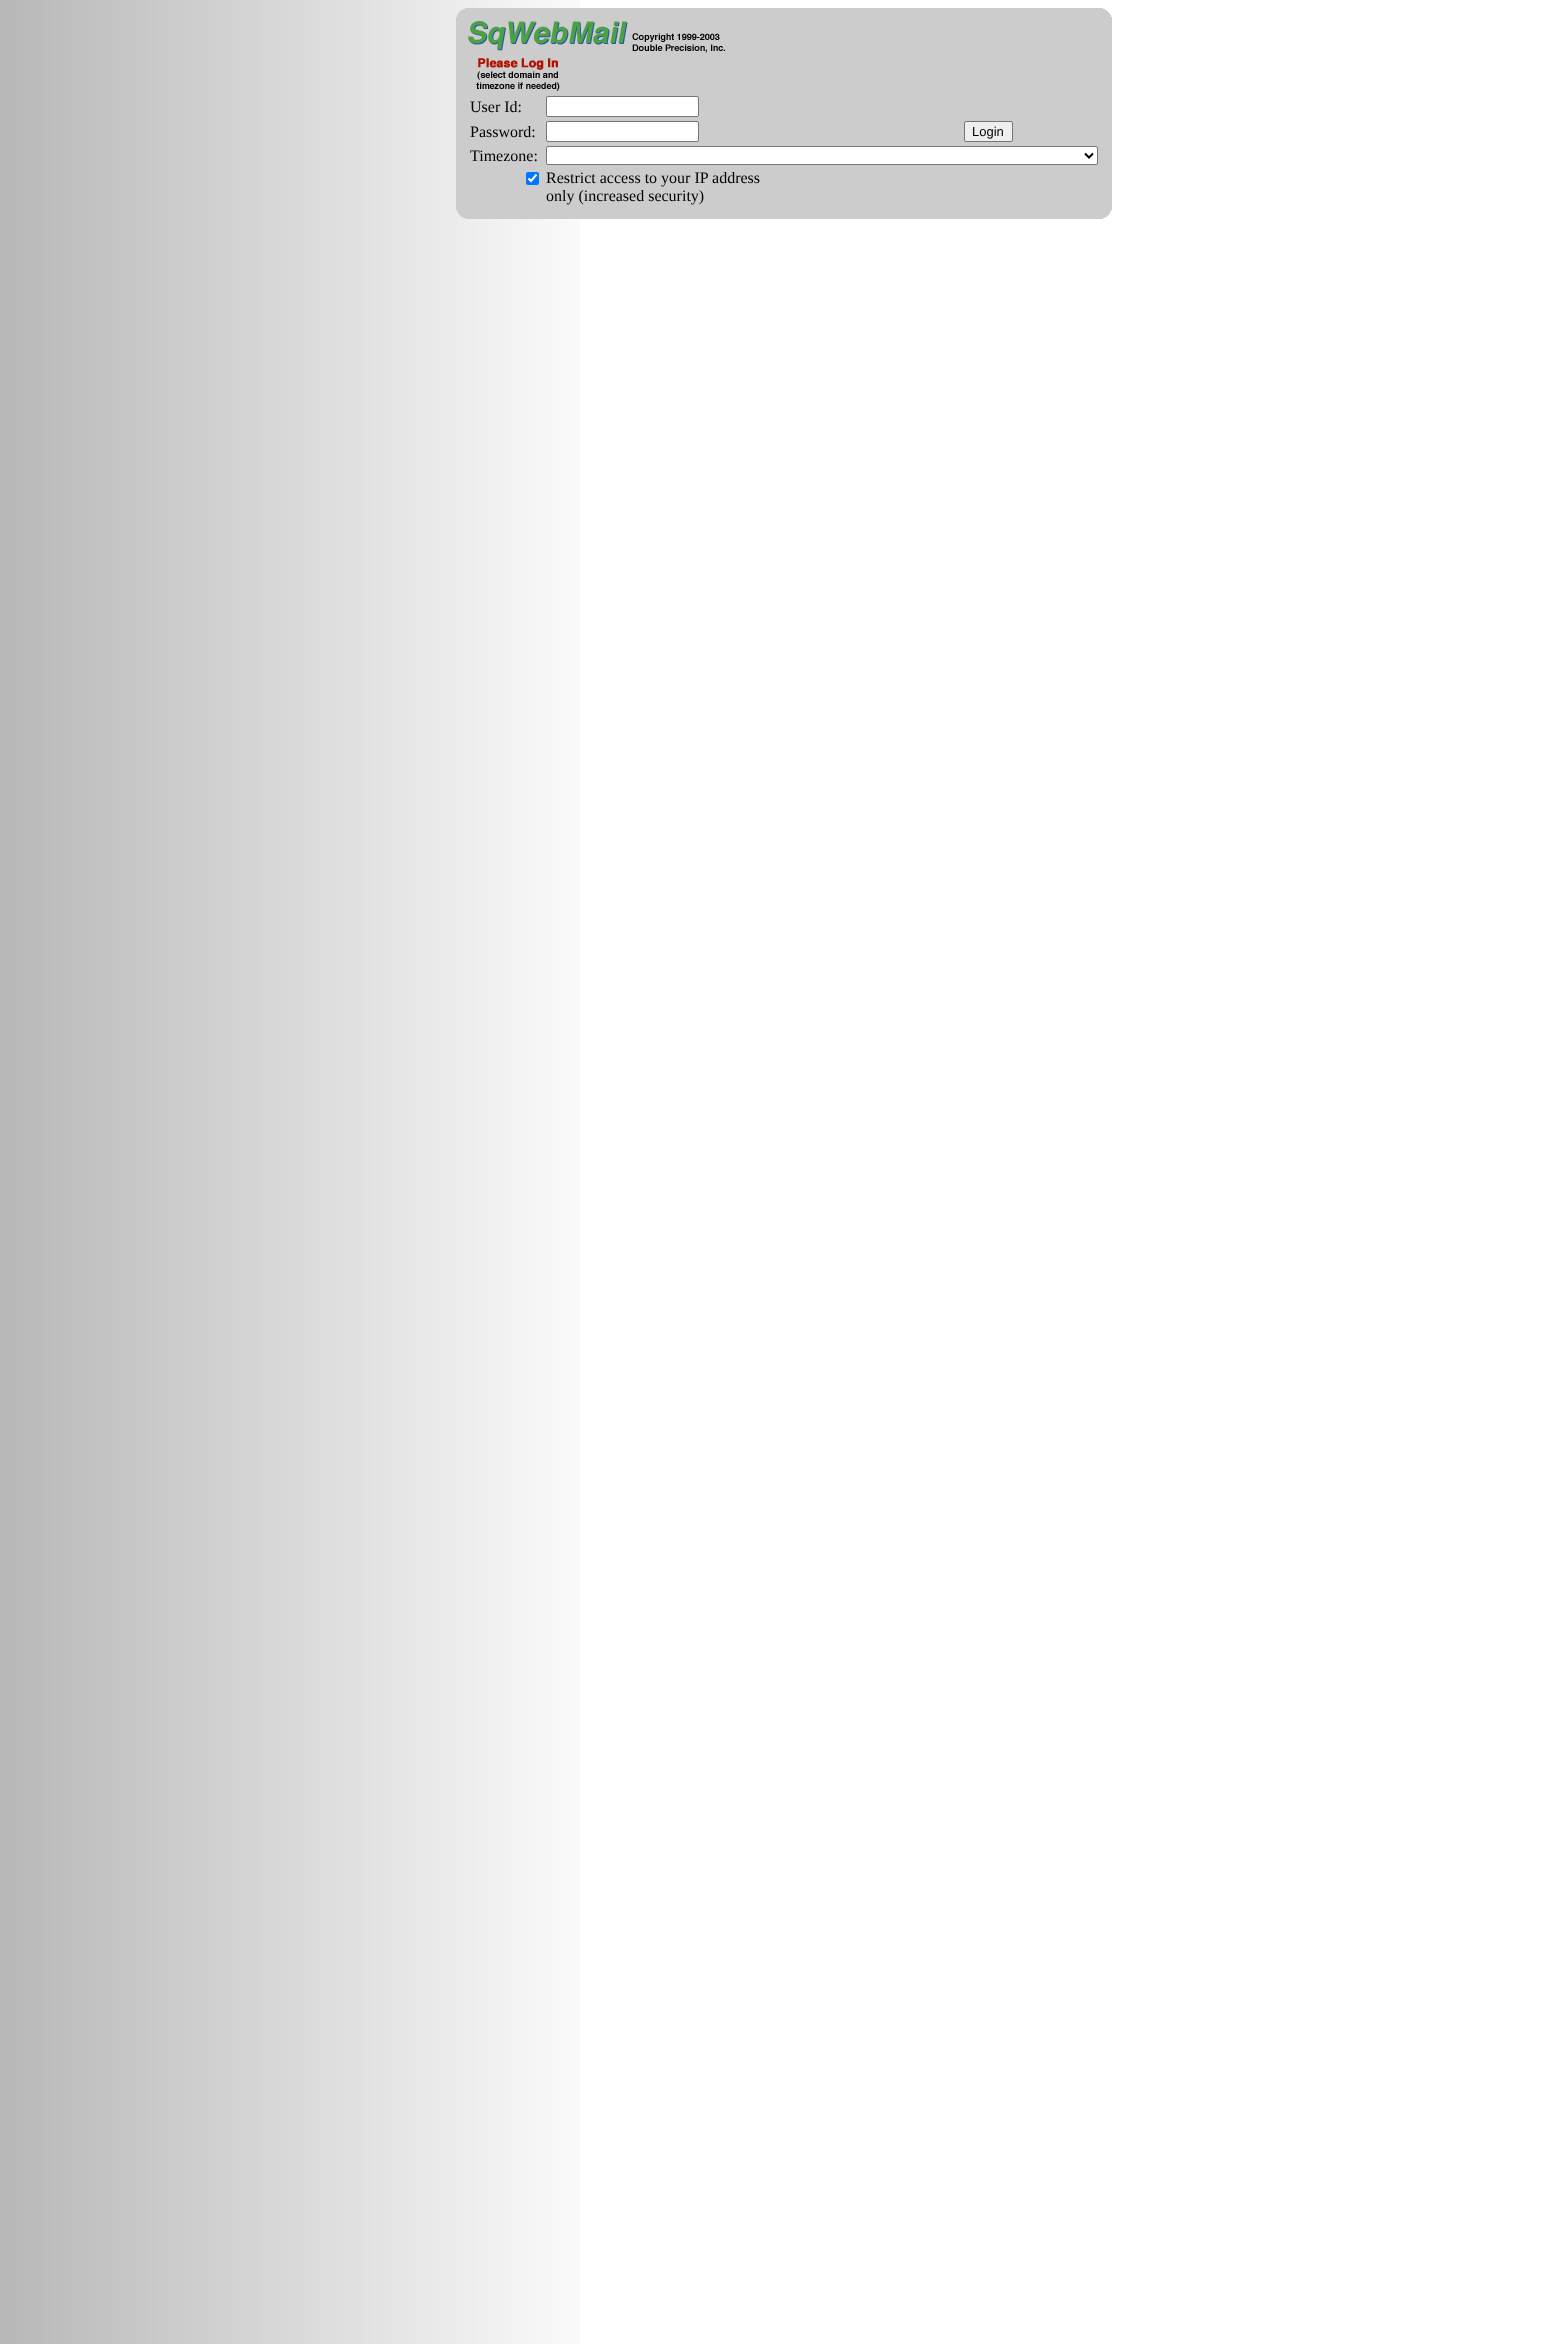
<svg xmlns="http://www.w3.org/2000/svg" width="1568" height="2344">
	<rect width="100%" height="100%" fill="#FFFFFF" />
	<image x="0" y="0" width="580" height="2344" href="assets/img1.png" />
	<image x="456" y="8" width="11" height="11" href="assets/img2.png" />
	<rect x="467" y="8" width="634" height="11" fill="#CCCCCC" />
	<image x="1101" y="8" width="11" height="11" href="assets/img3.png" />
	<rect x="456" y="19" width="656" height="189" fill="#CCCCCC" />
	<image x="468" y="21" width="257" height="32" href="assets/img4.png" />
	<image x="476" y="58" width="84" height="33" href="assets/img5.png" />
	<text x="470" y="112" font-family="Liberation Serif" font-size="16" fill="#000000">User Id:</text>
	<rect x="546.5" y="96.5" width="152" height="20" rx="1.5" fill="#FFFFFF" stroke="#767676" />
	<text x="470" y="137" font-family="Liberation Serif" font-size="16" fill="#000000">Password:</text>
	<rect x="546.5" y="121.5" width="152" height="20" rx="1.5" fill="#FFFFFF" stroke="#767676" />
	<rect x="964.5" y="121.5" width="48" height="20" rx="1.5" fill="#EFEFEF" stroke="#767676" />
	<text x="972" y="136" font-family="Liberation Sans" font-size="13" fill="#000000">Login</text>
	<text x="470" y="161" font-family="Liberation Serif" font-size="16" fill="#000000">Timezone:</text>
	<rect x="546.5" y="146.5" width="551" height="18" rx="1.5" fill="#FFFFFF" stroke="#767676" />
	<path d="M1085 153.5L1089 157.5L1093 153.5" fill="none" stroke="#000000" stroke-width="2" />
	<rect x="526" y="172" width="13" height="13" rx="2" fill="#0075FF" />
	<path d="M528.5 178.5L531 181L536.5 174.5" fill="none" stroke="#FFFFFF" stroke-width="2.1" />
	<g font-family="Liberation Serif" font-size="16" fill="#000000">
		<text x="546" y="183">Restrict access to your IP address</text>
		<text x="546" y="201">only (increased security)</text>
	</g>
	<image x="456" y="208" width="11" height="11" href="assets/img6.png" />
	<rect x="467" y="208" width="634" height="11" fill="#CCCCCC" />
	<image x="1101" y="208" width="11" height="11" href="assets/img7.png" />
</svg>
